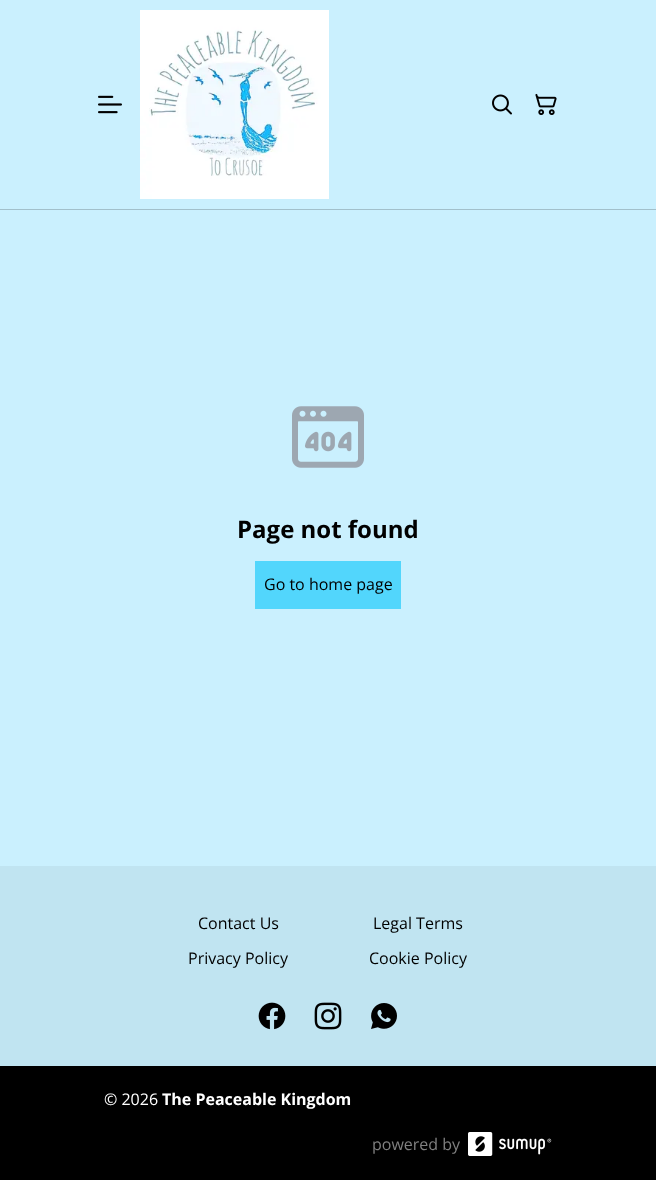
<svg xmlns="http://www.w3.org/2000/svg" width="656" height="1180">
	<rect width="100%" height="100%" fill="#CAF0FE" />
	<rect x="0" y="209" width="656" height="1" fill="#A2C0CB" />
	<image x="98" y="95" width="24" height="19" href="assets/img1.png" />
	<image x="140" y="10" width="189" height="189" href="assets/img2.png" />
	<image x="492" y="94" width="20" height="21" href="assets/img3.png" />
	<image x="535" y="93" width="22" height="22" href="assets/img4.png" />
	<image x="292" y="406" width="72" height="62" href="assets/img5.png" />
	<text x="237" y="538" font-family="Open Sans" font-size="24" font-weight="700" fill="#000000">Page not found</text>
	<rect x="255" y="561" width="146" height="48" fill="#52D6FC" />
	<text x="264" y="590" font-family="Open Sans" font-size="16" fill="#000000">Go to home page</text>
	<rect x="0" y="866" width="656" height="200" fill="#C0E4F1" />
	<g font-family="Open Sans" font-size="16" fill="#000000">
		<text x="198" y="929">Contact Us</text>
		<text x="373" y="929">Legal Terms</text>
		<text x="188" y="964">Privacy Policy</text>
		<text x="369" y="964">Cookie Policy</text>
	</g>
	<image x="258" y="1002" width="28" height="28" href="assets/img6.png" />
	<image x="314" y="1002" width="28" height="28" href="assets/img7.png" />
	<image x="371" y="1003" width="26" height="26" href="assets/img8.png" />
	<rect x="0" y="1066" width="656" height="114" fill="#000000" />
	<text x="104" y="1105" font-family="Open Sans" font-size="16" fill="#FFFFFF">© 2026</text>
	<text x="162" y="1105" font-family="Open Sans" font-size="16" font-weight="700" fill="#FFFFFF">The Peaceable Kingdom</text>
	<text x="372" y="1150" font-family="Open Sans" font-size="16" fill="#808080">powered by</text>
	<image x="468" y="1132" width="84" height="24" href="assets/img9.png" />
</svg>
